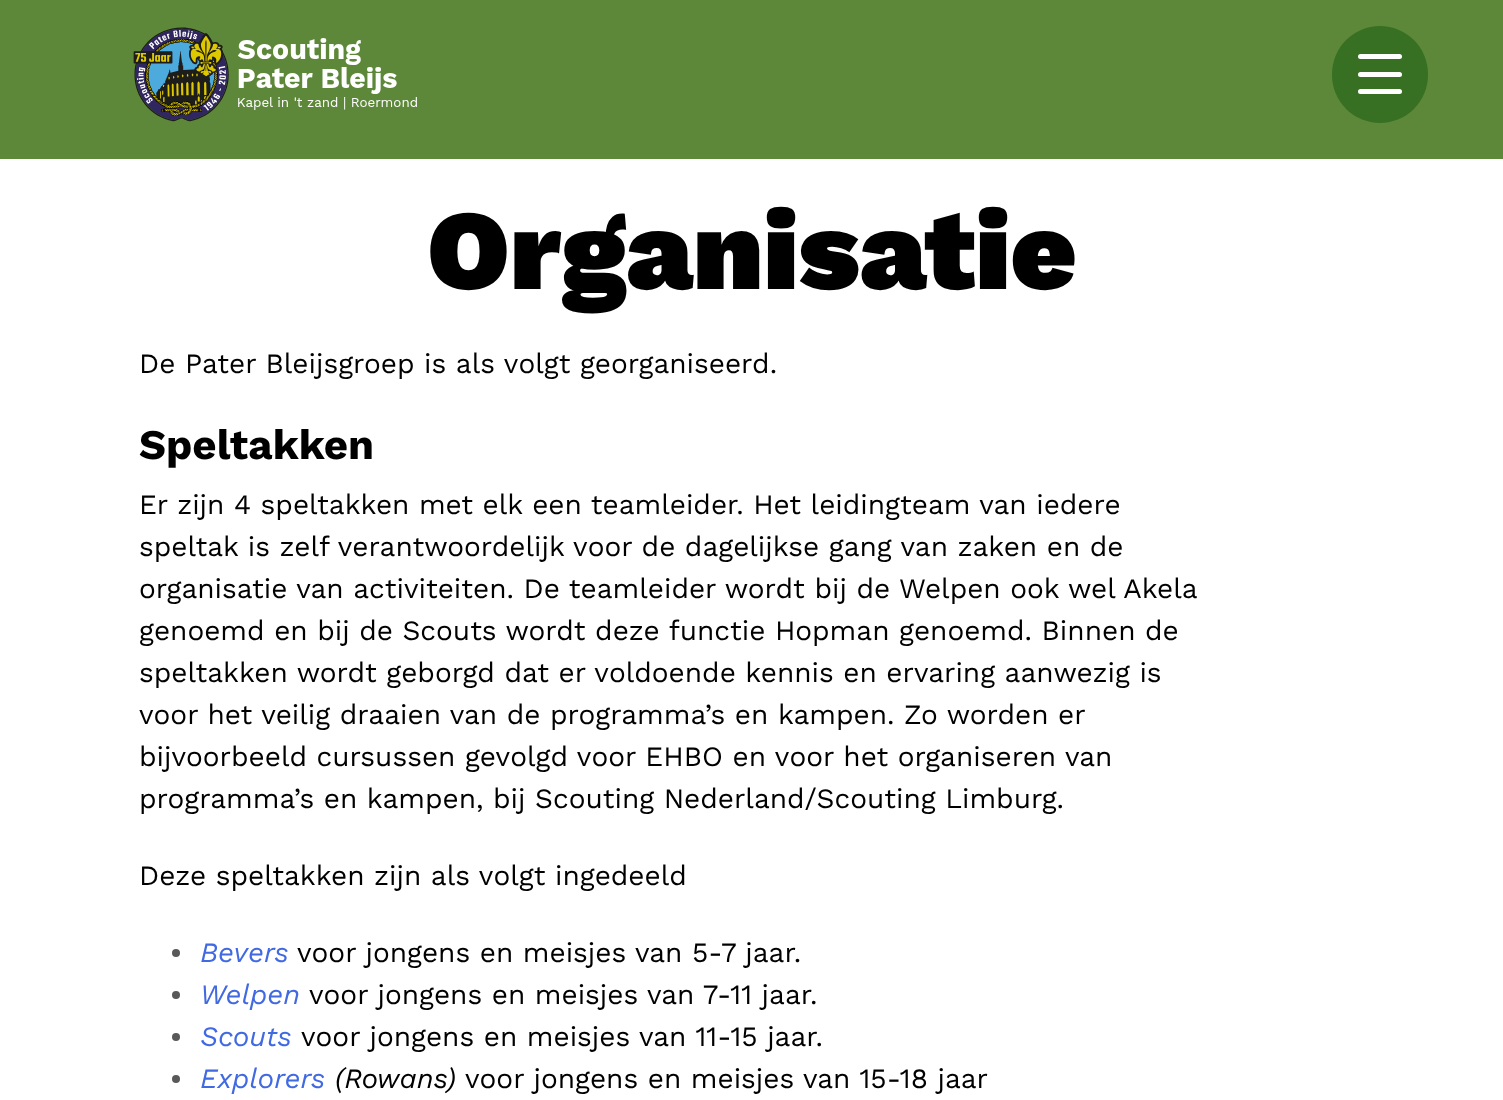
<svg xmlns="http://www.w3.org/2000/svg" width="1503" height="1100">
	<rect width="100%" height="100%" fill="#FFFFFF" />
	<rect x="0" y="0" width="1503" height="159" fill="#5E8839" />
	<rect x="1332" y="26" width="96" height="97" rx="48" fill="#377022" />
	<rect x="1358" y="72" width="44" height="5" rx="2.5" fill="#FFFFFF" />
	<rect x="1358" y="54" width="44" height="5" rx="2.5" fill="#FFFFFF" />
	<rect x="1358" y="89" width="44" height="5" rx="2.5" fill="#FFFFFF" />
	<image x="133" y="27" width="284" height="95" href="assets/img1.png" />
	<text x="427" y="289" font-family="Work Sans" font-size="113.75" font-weight="900" fill="#000000">Organisatie</text>
	<text x="139" y="373" font-family="Work Sans" font-size="28" fill="#000000">De Pater Bleijsgroep is als volgt georganiseerd.</text>
	<text x="139" y="459" font-family="Work Sans" font-size="42" font-weight="700" fill="#000000">Speltakken</text>
	<g font-family="Work Sans" font-size="28" fill="#000000">
		<text x="139" y="514">Er zijn 4 speltakken met elk een teamleider. Het leidingteam van iedere</text>
		<text x="139" y="556">speltak is zelf verantwoordelijk voor de dagelijkse gang van zaken en de</text>
		<text x="139" y="598">organisatie van activiteiten. De teamleider wordt bij de Welpen ook wel Akela</text>
		<text x="139" y="640">genoemd en bij de Scouts wordt deze functie Hopman genoemd. Binnen de</text>
		<text x="139" y="682">speltakken wordt geborgd dat er voldoende kennis en ervaring aanwezig is</text>
		<text x="139" y="724">voor het veilig draaien van de programma’s en kampen. Zo worden er</text>
		<text x="139" y="766">bijvoorbeeld cursussen gevolgd voor EHBO en voor het organiseren van</text>
		<text x="139" y="808">programma’s en kampen, bij Scouting Nederland/Scouting Limburg.</text>
		<text x="139" y="885">Deze speltakken zijn als volgt ingedeeld</text>
	</g>
	<circle cx="176" cy="953" r="4" fill="#595959" />
	<text x="200" y="962" font-family="Work Sans" font-size="28" font-style="italic" fill="#4169E1">Bevers</text>
	<text x="297" y="962" font-family="Work Sans" font-size="28" fill="#000000">voor jongens en meisjes van 5-7 jaar.</text>
	<circle cx="176" cy="995" r="4" fill="#595959" />
	<text x="200" y="1004" font-family="Work Sans" font-size="28" font-style="italic" fill="#4169E1">Welpen</text>
	<text x="309" y="1004" font-family="Work Sans" font-size="28" fill="#000000">voor jongens en meisjes van 7-11 jaar.</text>
	<circle cx="176" cy="1037" r="4" fill="#595959" />
	<text x="200" y="1046" font-family="Work Sans" font-size="28" font-style="italic" fill="#4169E1">Scouts</text>
	<text x="301" y="1046" font-family="Work Sans" font-size="28" fill="#000000">voor jongens en meisjes van 11-15 jaar.</text>
	<circle cx="176" cy="1079" r="4" fill="#595959" />
	<text x="200" y="1088" font-family="Work Sans" font-size="28" font-style="italic" fill="#4169E1">Explorers</text>
	<text x="335" y="1088" font-family="Work Sans" font-size="28" font-style="italic" fill="#000000">(Rowans)</text>
	<text x="465" y="1088" font-family="Work Sans" font-size="28" fill="#000000">voor jongens en meisjes van 15-18 jaar</text>
</svg>
